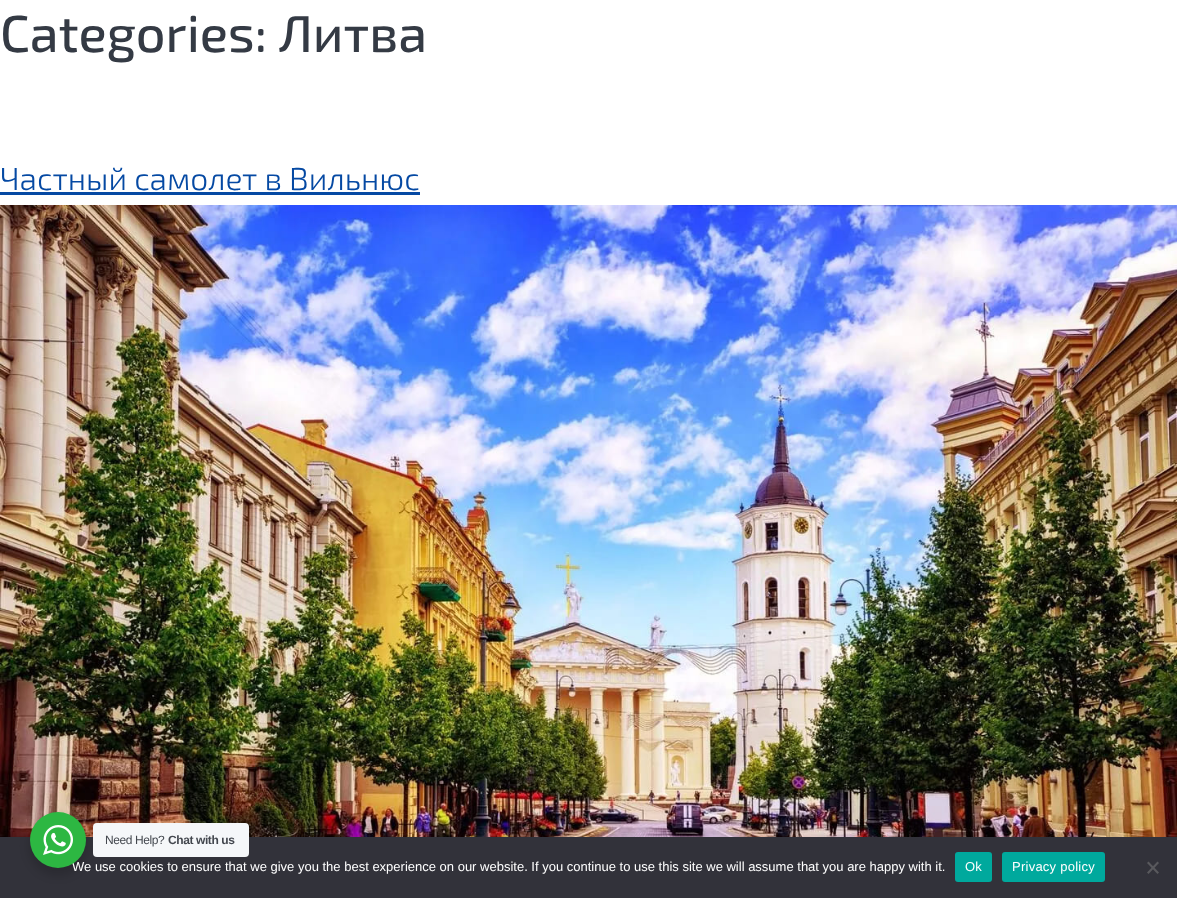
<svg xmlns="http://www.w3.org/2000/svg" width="1177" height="898">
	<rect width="100%" height="100%" fill="#FFFFFF" />
	<text x="0" y="52" font-family="'Exo 2'" font-size="52" font-weight="500" fill="#343A44">Categories: Литва</text>
	<text x="0" y="190" font-family="'Exo 2'" font-size="31.75" font-weight="300" fill="#0549A3">Частный самолет в Вильнюс</text>
	<rect x="0" y="192" width="420" height="3" fill="#0549A3" />
	<image x="0" y="205" width="1177" height="632" href="assets/img1.png" />
	<rect x="0" y="837" width="1177" height="61" fill="#32323A" />
	<rect x="28" y="816" width="60" height="60" rx="30" fill="#000000" fill-opacity="0.14" filter="blur(4px)" />
	<text x="72" y="871" font-family="Liberation Sans" font-size="13" fill="#FFFFFF">We use cookies to ensure that we give you the best experience on our website. If you continue to use this site we will assume that you are happy with it.</text>
	<circle cx="58" cy="840" r="28" fill="#2DB742" />
	<image x="43" y="825" width="30" height="30" href="assets/img2.png" />
	<rect x="93" y="823" width="156" height="34" rx="4" fill="#F5F7F9" />
	<text x="105" y="844" font-family="Liberation Sans" font-size="12" letter-spacing="-0.4" fill="#43474E">Need Help?</text>
	<text x="168" y="844" font-family="Liberation Sans" font-size="12" font-weight="700" letter-spacing="-0.4" fill="#43474E">Chat with us</text>
	<rect x="955" y="852" width="37" height="30" rx="3" fill="#00A99D" />
	<text x="965" y="871" font-family="Liberation Sans" font-size="13" letter-spacing="0.25" fill="#FFFFFF">Ok</text>
	<rect x="1002" y="852" width="103" height="30" rx="3" fill="#00A99D" />
	<text x="1012" y="871" font-family="Liberation Sans" font-size="13" letter-spacing="0.25" fill="#FFFFFF">Privacy policy</text>
	<path d="M1157.5 861.5L1159 863L1148.5 874L1147 872.5Z" fill="#59595D" />
	<path d="M1147 863L1148.5 861.5L1159 872.5L1157.5 874Z" fill="#59595D" />
</svg>
